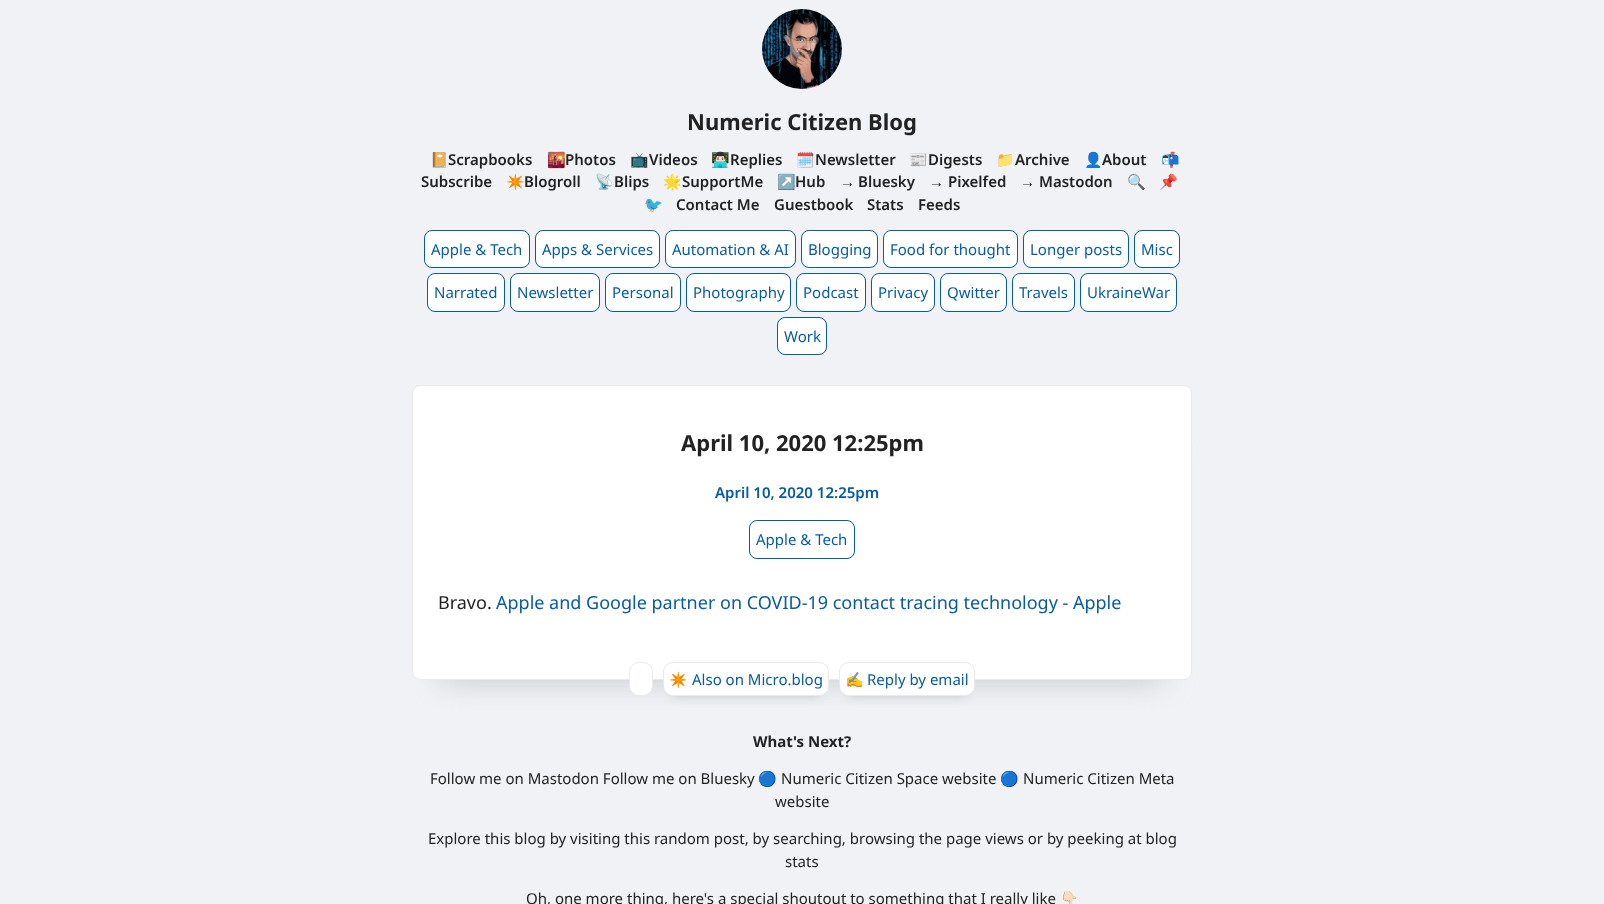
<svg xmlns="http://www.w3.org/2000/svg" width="1604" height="904">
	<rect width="100%" height="100%" fill="#F0F2F5" />
	<image x="762" y="9" width="80" height="80" href="assets/img1.png" />
	<text x="687" y="130" font-family="Noto Sans" font-size="22" font-weight="700" fill="#222222">Numeric Citizen Blog</text>
	<text x="430" y="165" font-family="Noto Color Emoji" font-size="15" fill="#222222">📔</text>
	<text x="448" y="165" font-family="Noto Sans" font-size="15" font-weight="600" fill="#222222">Scrapbooks</text>
	<text x="547" y="165" font-family="Noto Color Emoji" font-size="15" fill="#222222">🌇</text>
	<text x="565" y="165" font-family="Noto Sans" font-size="15" font-weight="600" fill="#222222">Photos</text>
	<text x="630" y="165" font-family="Noto Color Emoji" font-size="15" fill="#222222">📺</text>
	<text x="649" y="165" font-family="Noto Sans" font-size="15" font-weight="600" fill="#222222">Videos</text>
	<text x="711" y="165" font-family="Noto Color Emoji" font-size="15" fill="#222222">👨🏻‍💻</text>
	<text x="730" y="165" font-family="Noto Sans" font-size="15" font-weight="600" fill="#222222">Replies</text>
	<text x="796" y="165" font-family="Noto Color Emoji" font-size="15" fill="#222222">🗓️</text>
	<text x="815" y="165" font-family="Noto Sans" font-size="15" font-weight="600" fill="#222222">Newsletter</text>
	<text x="909" y="165" font-family="Noto Color Emoji" font-size="15" fill="#222222">📰</text>
	<text x="928" y="165" font-family="Noto Sans" font-size="15" font-weight="600" fill="#222222">Digests</text>
	<text x="996" y="165" font-family="Noto Color Emoji" font-size="15" fill="#222222">📁</text>
	<text x="1015" y="165" font-family="Noto Sans" font-size="15" font-weight="600" fill="#222222">Archive</text>
	<text x="1084" y="165" font-family="Noto Color Emoji" font-size="15" fill="#222222">👤</text>
	<text x="1102" y="165" font-family="Noto Sans" font-size="15" font-weight="600" fill="#222222">About</text>
	<text x="1161" y="165" font-family="Noto Color Emoji" font-size="15" fill="#222222">📬</text>
	<text x="421" y="187" font-family="Noto Sans" font-size="15" font-weight="600" fill="#222222">Subscribe</text>
	<text x="506" y="187" font-family="Noto Color Emoji" font-size="15" fill="#222222">✴️</text>
	<text x="524" y="187" font-family="Noto Sans" font-size="15" font-weight="600" fill="#222222">Blogroll</text>
	<text x="595" y="187" font-family="Noto Color Emoji" font-size="15" fill="#222222">📡</text>
	<text x="614" y="187" font-family="Noto Sans" font-size="15" font-weight="600" fill="#222222">Blips</text>
	<text x="663" y="187" font-family="Noto Color Emoji" font-size="15" fill="#222222">🌟</text>
	<text x="682" y="187" font-family="Noto Sans" font-size="15" font-weight="600" fill="#222222">SupportMe</text>
	<text x="777" y="187" font-family="Noto Color Emoji" font-size="15" fill="#222222">↗️</text>
	<text x="795" y="187" font-family="Noto Sans" font-size="15" font-weight="600" fill="#222222">Hub</text>
	<text x="840" y="187" font-family="Liberation Sans" font-size="15" font-weight="700" fill="#222222">→</text>
	<text x="858" y="187" font-family="Noto Sans" font-size="15" font-weight="600" fill="#222222">Bluesky</text>
	<text x="929" y="187" font-family="Liberation Sans" font-size="15" font-weight="700" fill="#222222">→</text>
	<text x="948" y="187" font-family="Noto Sans" font-size="15" font-weight="600" fill="#222222">Pixelfed</text>
	<text x="1020" y="187" font-family="Liberation Sans" font-size="15" font-weight="700" fill="#222222">→</text>
	<text x="1039" y="187" font-family="Noto Sans" font-size="15" font-weight="600" fill="#222222">Mastodon</text>
	<g font-family="Noto Color Emoji" font-size="15" fill="#222222">
		<text x="1127" y="187">🔍</text>
		<text x="1159" y="187">📌</text>
		<text x="644" y="210">🐦</text>
	</g>
	<g font-family="Noto Sans" font-size="15" font-weight="600" fill="#222222">
		<text x="676" y="210">Contact Me</text>
		<text x="774" y="210">Guestbook</text>
		<text x="867" y="210">Stats</text>
		<text x="918" y="210">Feeds</text>
	</g>
	<rect x="424.5" y="230.5" width="105" height="37" rx="7.5" fill="#FFFFFF" stroke="#065CA5" />
	<text x="431" y="255" font-family="Noto Sans" font-size="15" fill="#065CA5">Apple &amp; Tech</text>
	<rect x="535.5" y="230.5" width="124" height="37" rx="7.5" fill="#FFFFFF" stroke="#065CA5" />
	<text x="542" y="255" font-family="Noto Sans" font-size="15" fill="#065CA5">Apps &amp; Services</text>
	<rect x="665.5" y="230.5" width="130" height="37" rx="7.5" fill="#FFFFFF" stroke="#065CA5" />
	<text x="672" y="255" font-family="Noto Sans" font-size="15" fill="#065CA5">Automation &amp; AI</text>
	<rect x="801.5" y="230.5" width="76" height="37" rx="7.5" fill="#FFFFFF" stroke="#065CA5" />
	<text x="808" y="255" font-family="Noto Sans" font-size="15" fill="#065CA5">Blogging</text>
	<rect x="883.5" y="230.5" width="134" height="37" rx="7.5" fill="#FFFFFF" stroke="#065CA5" />
	<text x="890" y="255" font-family="Noto Sans" font-size="15" fill="#065CA5">Food for thought</text>
	<rect x="1023.5" y="230.5" width="105" height="37" rx="7.5" fill="#FFFFFF" stroke="#065CA5" />
	<text x="1030" y="255" font-family="Noto Sans" font-size="15" fill="#065CA5">Longer posts</text>
	<rect x="1134.5" y="230.5" width="45" height="37" rx="7.5" fill="#FFFFFF" stroke="#065CA5" />
	<text x="1141" y="255" font-family="Noto Sans" font-size="15" fill="#065CA5">Misc</text>
	<rect x="427.5" y="273.5" width="77" height="38" rx="7.5" fill="#FFFFFF" stroke="#065CA5" />
	<text x="434" y="298" font-family="Noto Sans" font-size="15" fill="#065CA5">Narrated</text>
	<rect x="510.5" y="273.5" width="89" height="38" rx="7.5" fill="#FFFFFF" stroke="#065CA5" />
	<text x="517" y="298" font-family="Noto Sans" font-size="15" fill="#065CA5">Newsletter</text>
	<rect x="605.5" y="273.5" width="75" height="38" rx="7.5" fill="#FFFFFF" stroke="#065CA5" />
	<text x="612" y="298" font-family="Noto Sans" font-size="15" fill="#065CA5">Personal</text>
	<rect x="686.5" y="273.5" width="104" height="38" rx="7.5" fill="#FFFFFF" stroke="#065CA5" />
	<text x="693" y="298" font-family="Noto Sans" font-size="15" fill="#065CA5">Photography</text>
	<rect x="796.5" y="273.5" width="69" height="38" rx="7.5" fill="#FFFFFF" stroke="#065CA5" />
	<text x="803" y="298" font-family="Noto Sans" font-size="15" fill="#065CA5">Podcast</text>
	<rect x="871.5" y="273.5" width="63" height="38" rx="7.5" fill="#FFFFFF" stroke="#065CA5" />
	<text x="878" y="298" font-family="Noto Sans" font-size="15" fill="#065CA5">Privacy</text>
	<rect x="940.5" y="273.5" width="66" height="38" rx="7.5" fill="#FFFFFF" stroke="#065CA5" />
	<text x="947" y="298" font-family="Noto Sans" font-size="15" fill="#065CA5">Qwitter</text>
	<rect x="1012.5" y="273.5" width="62" height="38" rx="7.5" fill="#FFFFFF" stroke="#065CA5" />
	<text x="1019" y="298" font-family="Noto Sans" font-size="15" fill="#065CA5">Travels</text>
	<rect x="1080.5" y="273.5" width="96" height="38" rx="7.5" fill="#FFFFFF" stroke="#065CA5" />
	<text x="1087" y="298" font-family="Noto Sans" font-size="15" fill="#065CA5">UkraineWar</text>
	<rect x="777.5" y="317.5" width="49" height="37" rx="7.5" fill="#FFFFFF" stroke="#065CA5" />
	<text x="784" y="342" font-family="Noto Sans" font-size="15" fill="#065CA5">Work</text>
	<rect x="442" y="445" width="720" height="235" fill="#C2C6CB" filter="blur(15px)" />
	<rect x="412.5" y="385.5" width="779" height="294" rx="7.5" fill="#FFFFFF" stroke="#EAEAEC" />
	<text x="681" y="451" font-family="Noto Sans" font-size="22" font-weight="700" fill="#222222">April 10, 2020 12:25pm</text>
	<text x="715" y="498" font-family="Noto Sans" font-size="15" font-weight="600" fill="#065CA5">April 10, 2020 12:25pm</text>
	<rect x="749.5" y="520.5" width="105" height="38" rx="7.5" fill="none" stroke="#065CA5" />
	<text x="756" y="545" font-family="Noto Sans" font-size="15" fill="#065CA5">Apple &amp; Tech</text>
	<text x="438" y="609" font-family="Noto Sans" font-size="18" fill="#222222">Bravo.</text>
	<text x="496" y="609" font-family="Noto Sans" font-size="18" fill="#065CA5">Apple and Google partner on COVID-19 contact tracing technology - Apple</text>
	<rect x="629.5" y="662.5" width="23" height="33" rx="9.5" fill="#FFFFFF" stroke="#EAEAEC" />
	<rect x="673" y="682" width="146" height="14" fill="#C2C6CB" filter="blur(5px)" />
	<rect x="663.5" y="662.5" width="165" height="33" rx="9.5" fill="#FFFFFF" stroke="#EAEAEC" />
	<text x="669" y="685" font-family="Noto Color Emoji" font-size="15" fill="#065CA5">✴️</text>
	<text x="692" y="685" font-family="Noto Sans" font-size="15" fill="#065CA5">Also on Micro.blog</text>
	<rect x="849" y="682" width="116" height="14" fill="#C2C6CB" filter="blur(5px)" />
	<rect x="839.5" y="662.5" width="135" height="33" rx="9.5" fill="#FFFFFF" stroke="#EAEAEC" />
	<text x="845" y="685" font-family="Noto Color Emoji" font-size="15" fill="#065CA5">✍️</text>
	<text x="867" y="685" font-family="Noto Sans" font-size="15" fill="#065CA5">Reply by email</text>
	<text x="753" y="747" font-family="Noto Sans" font-size="15" font-weight="700" fill="#222222">What's Next?</text>
	<text x="430" y="784" font-family="Noto Sans" font-size="15" fill="#222222">Follow me on Mastodon Follow me on Bluesky</text>
	<text x="758" y="784" font-family="Noto Color Emoji" font-size="15" fill="#222222">🔵</text>
	<text x="781" y="784" font-family="Noto Sans" font-size="15" fill="#222222">Numeric Citizen Space website</text>
	<text x="1000" y="784" font-family="Noto Color Emoji" font-size="15" fill="#222222">🔵</text>
	<g font-family="Noto Sans" font-size="15" fill="#222222">
		<text x="1023" y="784">Numeric Citizen Meta</text>
		<text x="775" y="807">website</text>
		<text x="428" y="844">Explore this blog by visiting this random post, by searching, browsing the page views or by peeking at blog</text>
		<text x="785" y="867">stats</text>
		<text x="526" y="904">Oh, one more thing, here's a special shoutout to something that I really like</text>
	</g>
	<text x="1060" y="904" font-family="Noto Color Emoji" font-size="15" fill="#222222">👇🏻</text>
</svg>
